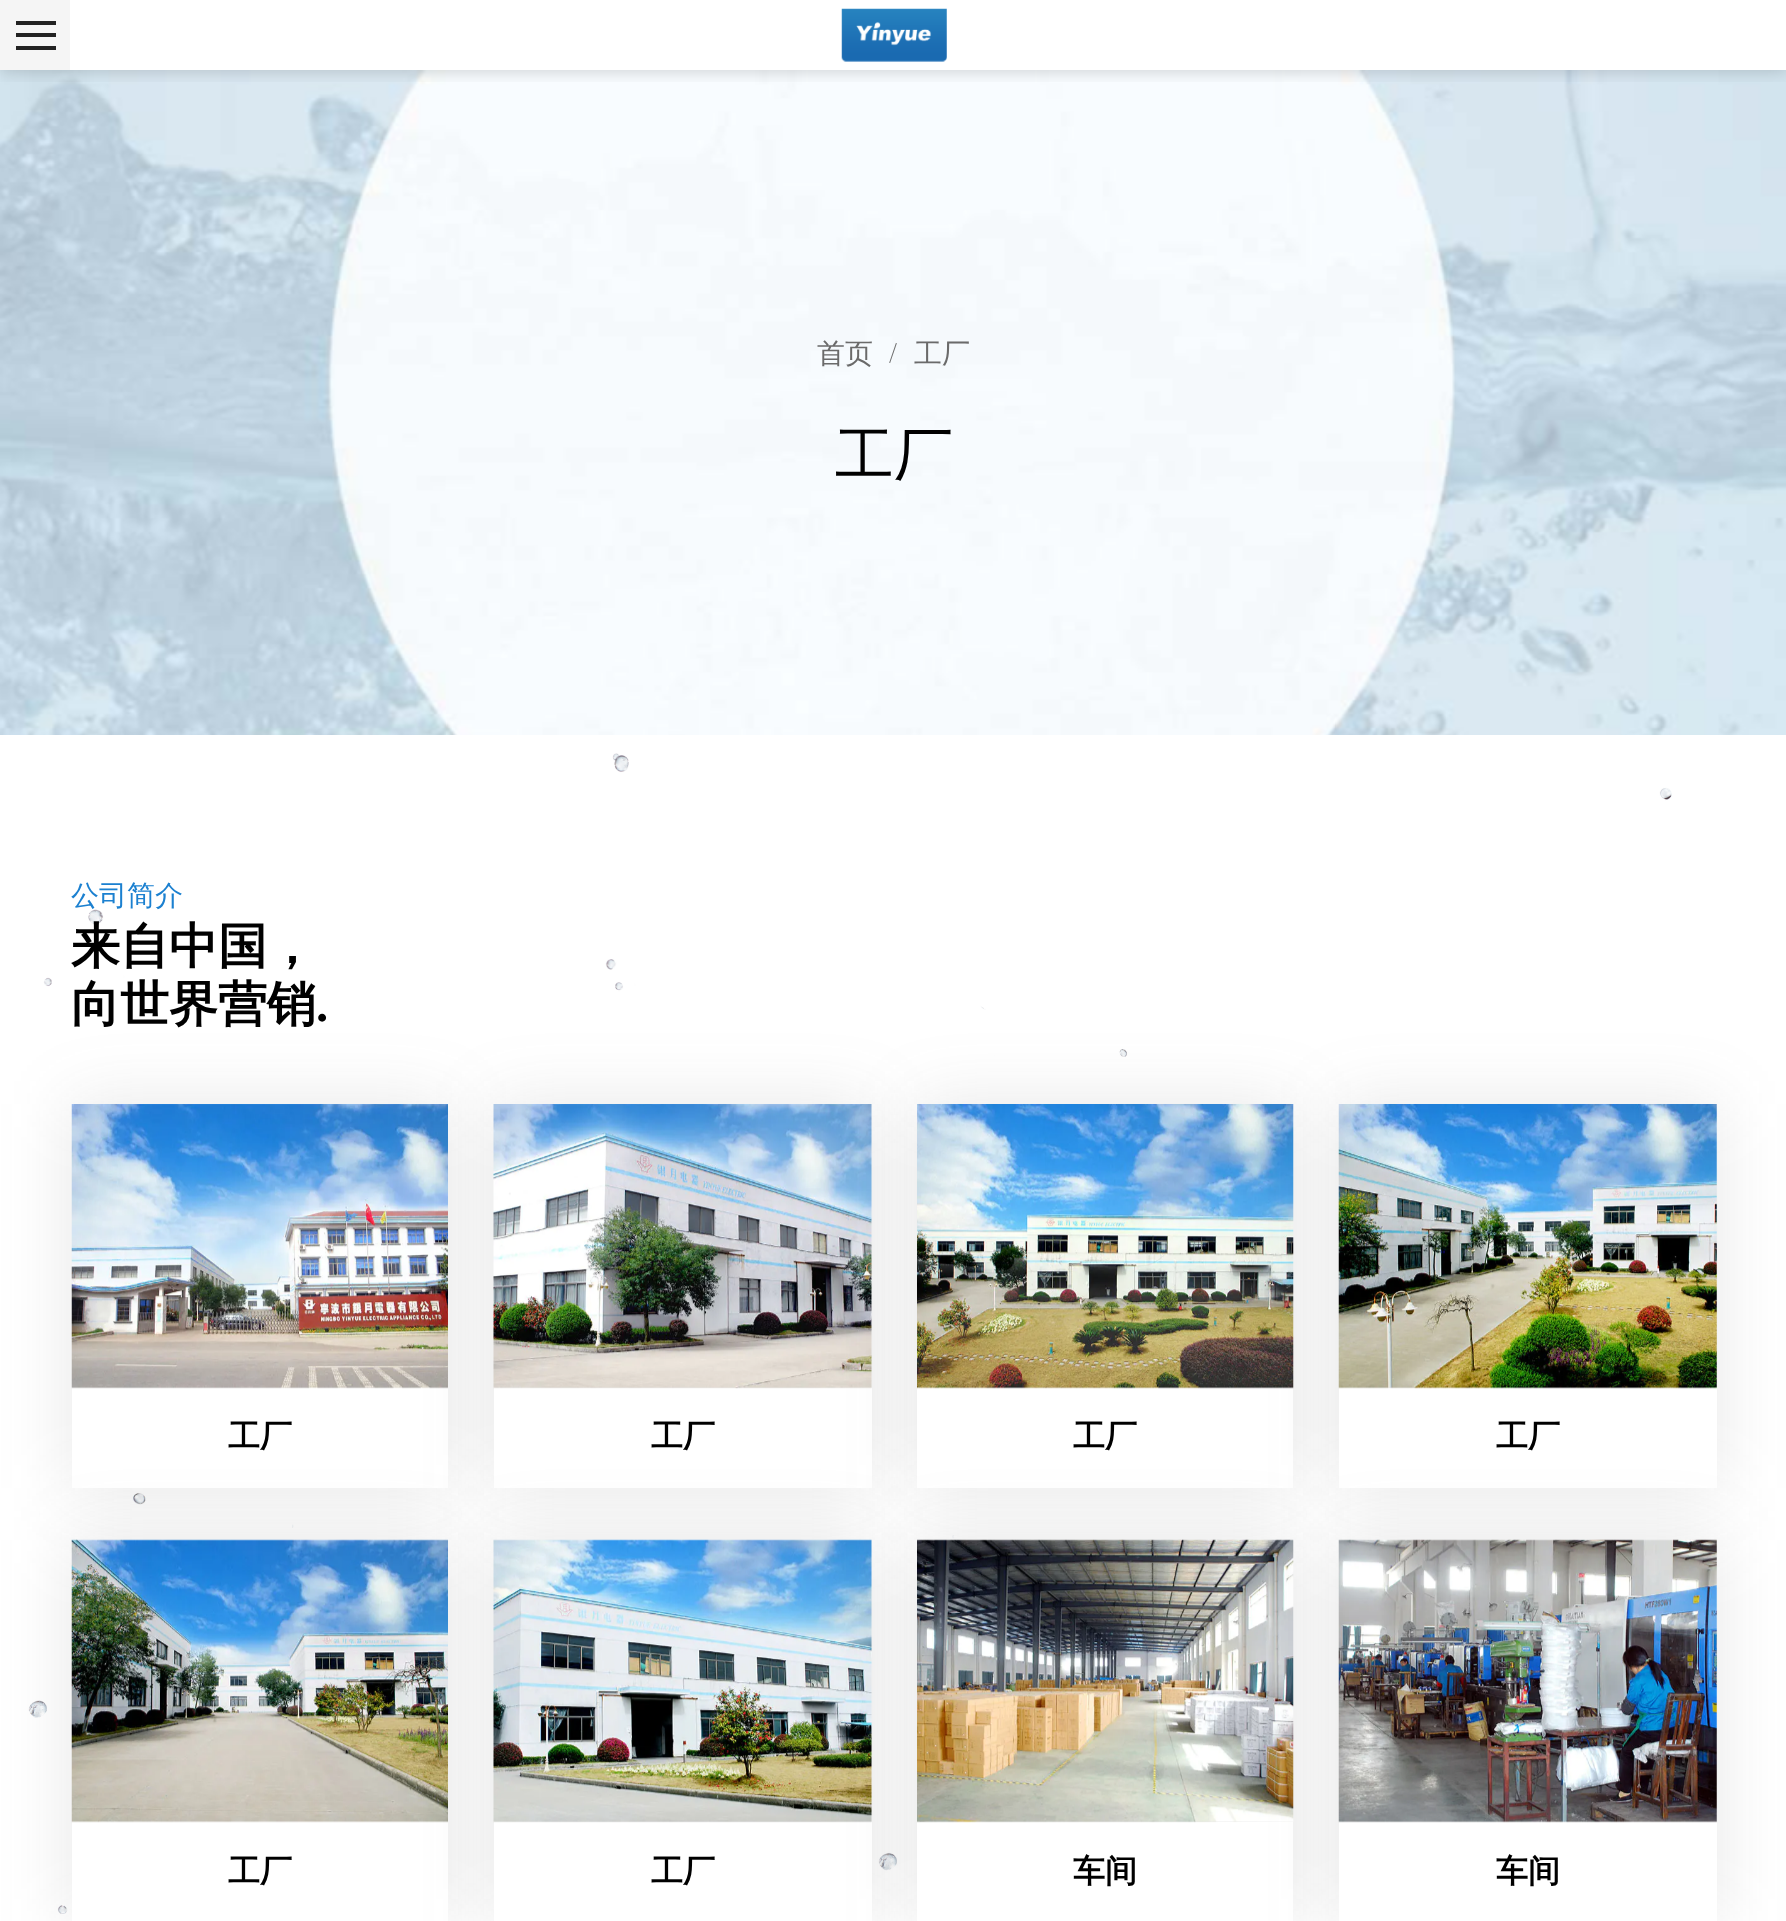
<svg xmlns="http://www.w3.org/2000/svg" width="1786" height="1921">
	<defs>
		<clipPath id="clip1"><rect x="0" y="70" width="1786" height="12" /></clipPath>
		<clipPath id="clip2"><path d="M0 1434H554V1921H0ZM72 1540H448V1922H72Z" clip-rule="evenodd" /></clipPath>
	</defs>
	<rect width="100%" height="100%" fill="#FFFFFF" />
	<image x="0" y="70" width="1786" height="665" href="assets/img2.png" />
	<g clip-path="url(#clip1)">
		<rect x="0" y="0" width="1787" height="70" fill="#000000" fill-opacity="0.2" filter="blur(9px)" />
	</g>
	<image x="841" y="8" width="106" height="54" href="assets/img1.png" />
	<rect x="0" y="0" width="70" height="70" fill="#F5F5F5" />
	<rect x="16" y="21" width="40" height="4" fill="#222222" />
	<rect x="16" y="33" width="40" height="4" fill="#222222" />
	<rect x="16" y="46" width="40" height="4" fill="#222222" />
	<text x="817" y="363" font-family="WenQuanYi Zen Hei" font-size="28" font-weight="500" fill="#6A6A6A">首页</text>
	<text x="889" y="363" font-family="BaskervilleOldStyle" font-size="28" fill="#6A6A6A">/</text>
	<text x="914" y="363" font-family="WenQuanYi Zen Hei" font-size="28" font-weight="500" fill="#6A6A6A">工厂</text>
	<text x="835" y="475" font-family="WenQuanYi Zen Hei" font-size="59" font-weight="500" fill="#000000">工厂</text>
	<image x="28" y="753" width="1644" height="1161" href="assets/img3.png" />
	<text x="71" y="905" font-family="WenQuanYi Zen Hei" font-size="28" font-weight="500" fill="#1B80D0">公司简介</text>
	<g font-family="WenQuanYi Zen Hei" font-size="49" font-weight="700" fill="#000000">
		<text x="71" y="963">来自中国，</text>
		<text x="71" y="1021">向世界营销</text>
	</g>
	<text x="316" y="1021" font-family="Liberation Serif" font-size="49" font-weight="700" fill="#000000">.</text>
	<rect x="72" y="1104" width="376" height="384" fill="#5F5F5F" fill-opacity="0.15" filter="blur(35px)" />
	<rect x="72" y="1388" width="376" height="100" fill="#FFFFFF" />
	<image x="71" y="1104" width="377" height="285" href="assets/img4.png" />
	<text x="228" y="1447" font-family="WenQuanYi Zen Hei" font-size="32" font-weight="700" fill="#000000">工厂</text>
	<rect x="494" y="1104" width="378" height="384" fill="#5F5F5F" fill-opacity="0.15" filter="blur(35px)" />
	<rect x="494" y="1388" width="378" height="100" fill="#FFFFFF" />
	<image x="493" y="1104" width="379" height="285" href="assets/img5.png" />
	<text x="651" y="1447" font-family="WenQuanYi Zen Hei" font-size="32" font-weight="700" fill="#000000">工厂</text>
	<rect x="917" y="1104" width="376" height="384" fill="#5F5F5F" fill-opacity="0.15" filter="blur(35px)" />
	<rect x="917" y="1388" width="376" height="100" fill="#FFFFFF" />
	<image x="917" y="1104" width="377" height="285" href="assets/img6.png" />
	<text x="1073" y="1447" font-family="WenQuanYi Zen Hei" font-size="32" font-weight="700" fill="#000000">工厂</text>
	<rect x="1339" y="1104" width="378" height="384" fill="#5F5F5F" fill-opacity="0.15" filter="blur(35px)" />
	<rect x="1339" y="1388" width="378" height="100" fill="#FFFFFF" />
	<image x="1338" y="1104" width="379" height="285" href="assets/img7.png" />
	<text x="1496" y="1447" font-family="WenQuanYi Zen Hei" font-size="32" font-weight="700" fill="#000000">工厂</text>
	<g clip-path="url(#clip2)">
		<rect x="72" y="1540" width="376" height="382" fill="#5F5F5F" fill-opacity="0.15" filter="blur(35px)" />
	</g>
	<image x="71" y="1539" width="377" height="284" href="assets/img8.png" />
	<text x="228" y="1882" font-family="WenQuanYi Zen Hei" font-size="32" font-weight="700" fill="#000000">工厂</text>
	<rect x="494" y="1540" width="378" height="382" fill="#5F5F5F" fill-opacity="0.15" filter="blur(35px)" />
	<rect x="494" y="1822" width="378" height="99" fill="#FFFFFF" />
	<image x="493" y="1539" width="379" height="284" href="assets/img9.png" />
	<text x="651" y="1882" font-family="WenQuanYi Zen Hei" font-size="32" font-weight="700" fill="#000000">工厂</text>
	<rect x="917" y="1540" width="376" height="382" fill="#5F5F5F" fill-opacity="0.15" filter="blur(35px)" />
	<rect x="917" y="1822" width="376" height="99" fill="#FFFFFF" />
	<image x="917" y="1539" width="377" height="284" href="assets/img10.png" />
	<text x="1073" y="1882" font-family="WenQuanYi Zen Hei" font-size="32" font-weight="700" fill="#000000">车间</text>
	<rect x="1339" y="1540" width="378" height="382" fill="#5F5F5F" fill-opacity="0.15" filter="blur(35px)" />
	<rect x="1339" y="1822" width="378" height="99" fill="#FFFFFF" />
	<image x="1338" y="1539" width="379" height="284" href="assets/img11.png" />
	<text x="1496" y="1882" font-family="WenQuanYi Zen Hei" font-size="32" font-weight="700" fill="#000000">车间</text>
</svg>
